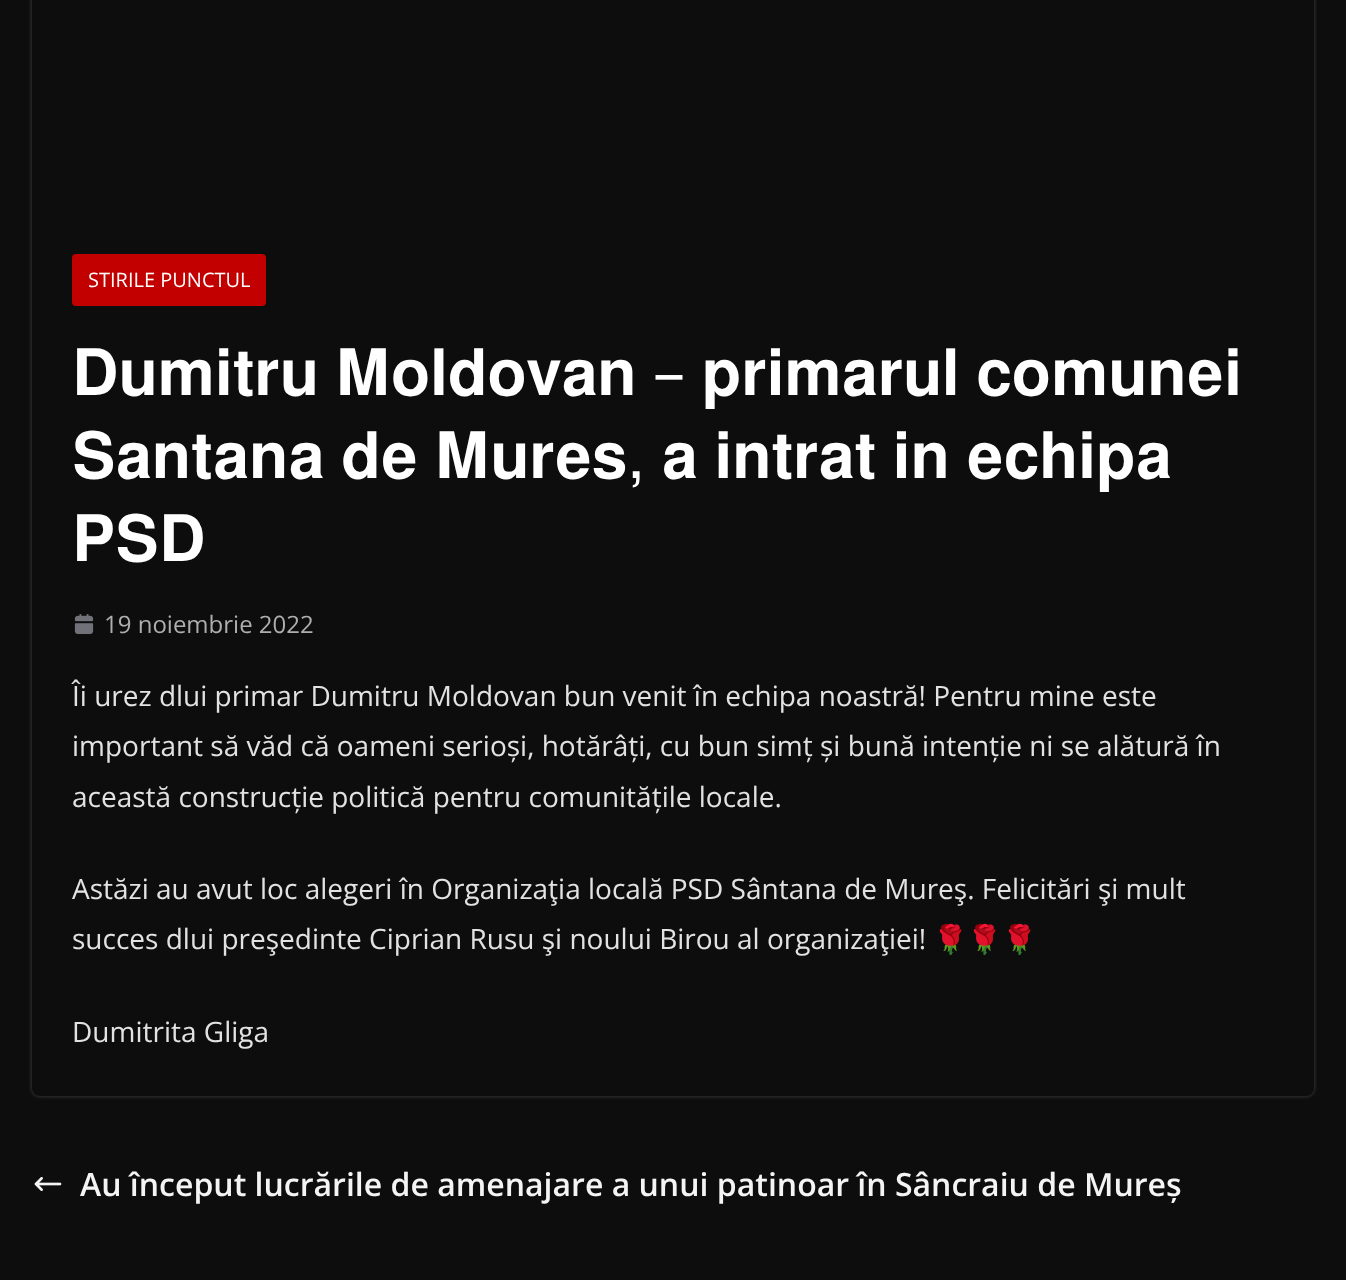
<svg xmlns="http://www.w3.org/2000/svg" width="1346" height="1280">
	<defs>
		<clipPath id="clip1"><path d="M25 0H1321V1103H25ZM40-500H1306C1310.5-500 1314-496.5 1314-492V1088C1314 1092.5 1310.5 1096 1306 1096H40C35.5 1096 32 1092.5 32 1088V-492C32-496.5 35.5-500 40-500Z" clip-rule="evenodd" /></clipPath>
	</defs>
	<rect width="100%" height="100%" fill="#0D0D0D" />
	<g clip-path="url(#clip1)">
		<rect x="32" y="-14" width="1282" height="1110" rx="8" fill="#FFFFFF" fill-opacity="0.24" filter="blur(2px)" />
	</g>
	<rect x="72" y="254" width="194" height="52" rx="4" fill="#C30000" />
	<text x="88" y="287" font-family="Open Sans" font-size="20" fill="#FFFFFF">STIRILE PUNCTUL</text>
	<g font-family="FreeSans" font-size="64" fill="#FFFFFF">
		<text x="72" y="395" word-spacing="0.5">𝐃𝐮𝐦𝐢𝐭𝐫𝐮 𝐌𝐨𝐥𝐝𝐨𝐯𝐚𝐧 – 𝐩𝐫𝐢𝐦𝐚𝐫𝐮𝐥 𝐜𝐨𝐦𝐮𝐧𝐞𝐢</text>
		<text x="72" y="478" word-spacing="0.5">𝐒𝐚𝐧𝐭𝐚𝐧𝐚 𝐝𝐞 𝐌𝐮𝐫𝐞𝐬, 𝐚 𝐢𝐧𝐭𝐫𝐚𝐭 𝐢𝐧 𝐞𝐜𝐡𝐢𝐩𝐚</text>
		<text x="72" y="561">𝐏𝐒𝐃</text>
	</g>
	<image x="74" y="614" width="20" height="20" href="assets/img1.png" />
	<text x="104" y="633" font-family="Open Sans" font-size="24" fill="#AEAEAE">19 noiembrie 2022</text>
	<g font-family="Open Sans" font-size="28" fill="#E3E2E2">
		<text x="72" y="706">Îi urez dlui primar Dumitru Moldovan bun venit în echipa noastră! Pentru mine este</text>
		<text x="72" y="756">important să văd că oameni serioși, hotărâți, cu bun simț și bună intenție ni se alătură în</text>
		<text x="72" y="807">această construcție politică pentru comunitățile locale.</text>
		<text x="72" y="899">Astăzi au avut loc alegeri în Organizaţia locală PSD Sântana de Mureş. Felicitări şi mult</text>
		<text x="72" y="949">succes dlui preşedinte Ciprian Rusu şi noului Birou al organizaţiei!</text>
	</g>
	<text x="933" y="949" font-family="Noto Color Emoji" font-size="28" fill="#E3E2E2">🌹🌹🌹</text>
	<text x="72" y="1042" font-family="Open Sans" font-size="28" fill="#E3E2E2">Dumitrita Gliga</text>
	<image x="34" y="1177" width="28" height="14" href="assets/img2.png" />
	<text x="80" y="1196" font-family="Open Sans" font-size="32" font-weight="600" fill="#F4F4F5">Au început lucrările de amenajare a unui patinoar în Sâncraiu de Mureș</text>
</svg>
